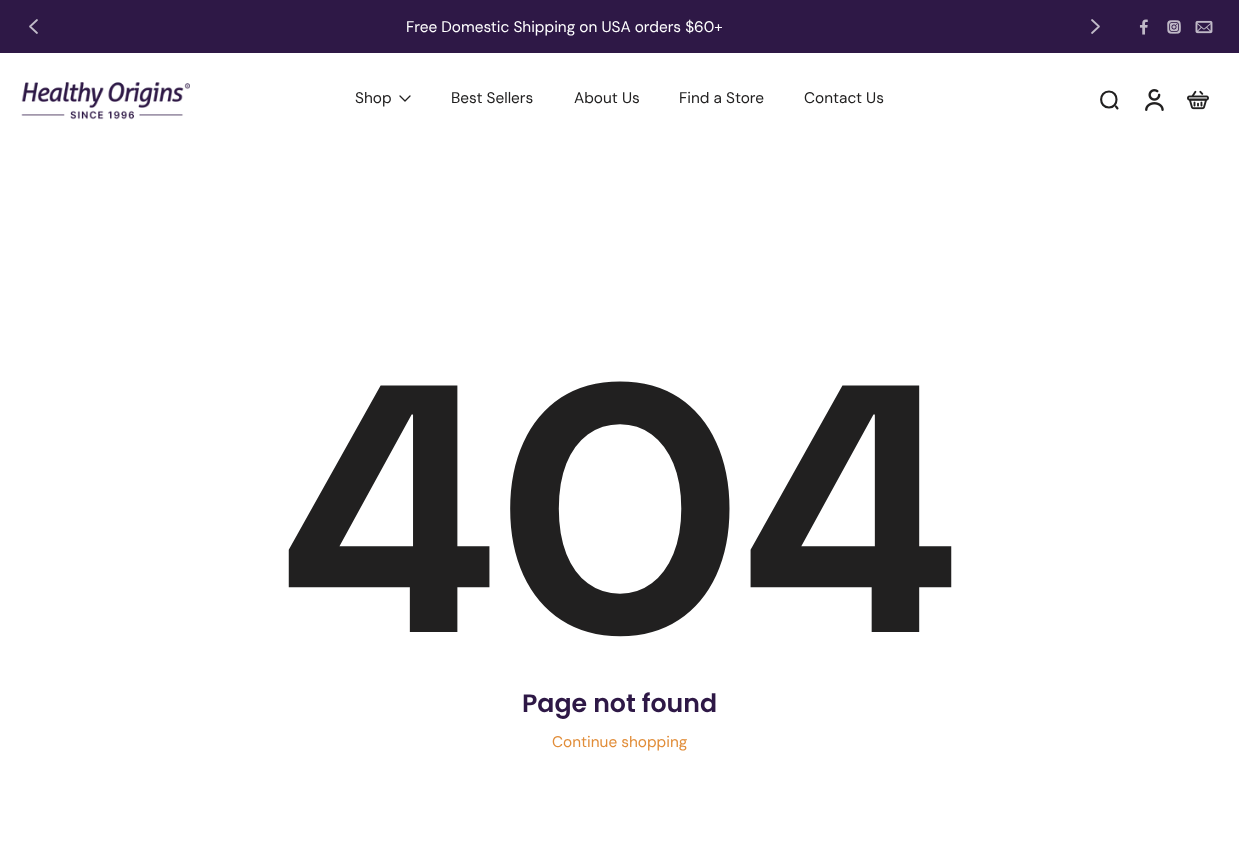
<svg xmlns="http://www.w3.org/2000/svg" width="1239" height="852">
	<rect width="100%" height="100%" fill="#FFFFFF" />
	<rect x="0" y="0" width="1239" height="53" fill="#2E1846" />
	<path d="M37 20L30 26.5L37 33" fill="none" stroke="#C0BAC8" stroke-width="1.8" stroke-linecap="round" stroke-linejoin="round" />
	<path d="M1092 33L1099 26.5L1092 20" fill="none" stroke="#C0BAC8" stroke-width="1.8" stroke-linecap="round" stroke-linejoin="round" />
	<text x="406" y="32" font-family="DM Sans" font-size="15.4" fill="#FFFFFF">Free Domestic Shipping on USA orders $60+</text>
	<image x="1139" y="19" width="9" height="16" href="assets/img1.png" />
	<image x="1167" y="20" width="14" height="14" href="assets/img2.png" />
	<image x="1195" y="20" width="18" height="14" href="assets/img3.png" />
	<image x="21" y="82" width="169" height="38" href="assets/img4.png" />
	<text x="355" y="103" font-family="DM Sans" font-size="15.4" fill="#212020">Shop</text>
	<path d="M400 96L405 101L410 96" fill="none" stroke="#212020" stroke-width="1.3" stroke-linecap="round" stroke-linejoin="round" />
	<g font-family="DM Sans" font-size="15.4" fill="#212020">
		<text x="451" y="103">Best Sellers</text>
		<text x="574" y="103">About Us</text>
		<text x="679" y="103">Find a Store</text>
		<text x="804" y="103">Contact Us</text>
	</g>
	<path d="M1109 107.5C1119 107.5 1119 91.5 1109 91.5C1098.5 91.5 1098.5 107.5 1109 107.5ZM1117.5 108.5L1116 106.5" fill="none" stroke="#212020" stroke-width="2.1" stroke-linecap="round" stroke-linejoin="round" />
	<image x="1145" y="89" width="19" height="22" href="assets/img5.png" />
	<image x="1187" y="90" width="22" height="20" href="assets/img6.png" />
	<text x="280" y="632" font-family="DM Sans" font-size="352" font-weight="700" fill="#212020">404</text>
	<text x="522" y="712" font-family="Poppins" font-size="25.25" font-weight="600" fill="#2E1846">Page not found</text>
	<text x="552" y="747" font-family="DM Sans" font-size="15.4" fill="#E18D39">Continue shopping</text>
</svg>
